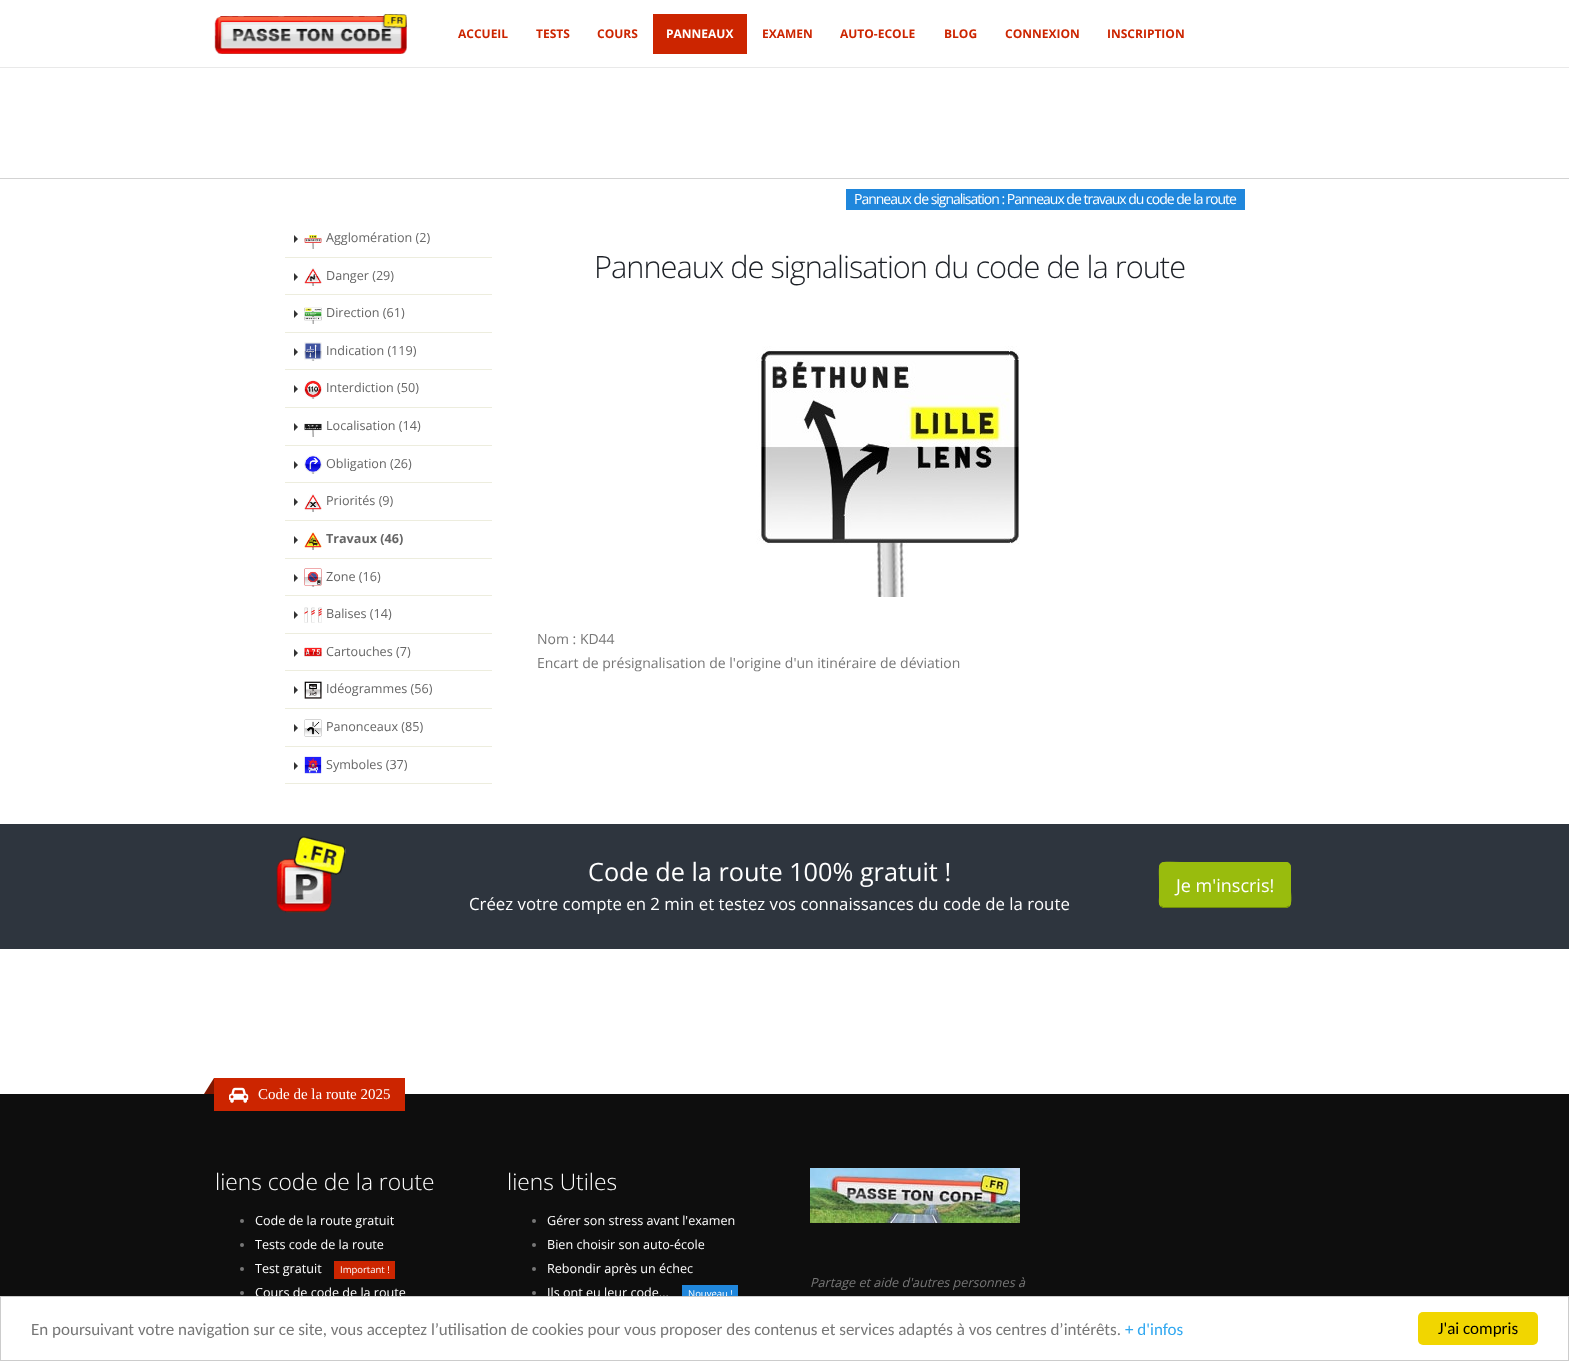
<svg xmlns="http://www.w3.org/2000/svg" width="1569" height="1361">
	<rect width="100%" height="100%" fill="#FFFFFF" />
	<rect x="0" y="67" width="1569" height="1" fill="#E9E9E9" />
	<image x="214" y="14" width="193" height="40" href="assets/img1.png" />
	<g font-family="Open Sans" font-size="12" font-weight="700" fill="#CC2500">
		<text x="458" y="38">ACCUEIL</text>
		<text x="536" y="38">TESTS</text>
		<text x="597" y="38">COURS</text>
	</g>
	<rect x="653" y="14" width="94" height="40" fill="#CC2500" />
	<text x="666" y="38" font-family="Open Sans" font-size="12" font-weight="700" fill="#FFFFFF">PANNEAUX</text>
	<g font-family="Open Sans" font-size="12" font-weight="700" fill="#CC2500">
		<text x="762" y="38">EXAMEN</text>
		<text x="840" y="38">AUTO-ECOLE</text>
		<text x="944" y="38">BLOG</text>
		<text x="1005" y="38">CONNEXION</text>
		<text x="1107" y="38">INSCRIPTION</text>
	</g>
	<rect x="0" y="178" width="1569" height="1" fill="#D3D3D3" />
	<rect x="846" y="189" width="399" height="21" fill="#2087DC" />
	<text x="854" y="204" font-family="Open Sans" font-size="14" letter-spacing="-1" fill="#FFFFFF">Panneaux de signalisation : Panneaux de travaux du code de la route</text>
	<rect x="285" y="257" width="207" height="1" fill="#EDEDDE" />
	<path d="M294 243V235L298 239Z" fill="#333333" />
	<image x="304" y="235" width="18" height="14" href="assets/img2.png" />
	<text x="326" y="242" font-family="Open Sans" font-size="12.6" fill="#666666">Agglomération (2)</text>
	<rect x="285" y="294" width="207" height="1" fill="#EDEDDE" />
	<path d="M294 281V273L298 277Z" fill="#333333" />
	<image x="304" y="268" width="18" height="18" href="assets/img3.png" />
	<text x="326" y="280" font-family="Open Sans" font-size="12.6" fill="#666666">Danger (29)</text>
	<rect x="285" y="332" width="207" height="1" fill="#EDEDDE" />
	<path d="M294 318V310L298 314Z" fill="#333333" />
	<image x="304" y="307" width="18" height="17" href="assets/img4.png" />
	<text x="326" y="317" font-family="Open Sans" font-size="12.6" fill="#666666">Direction (61)</text>
	<rect x="285" y="369" width="207" height="1" fill="#EDEDDE" />
	<path d="M294 356V348L298 352Z" fill="#333333" />
	<image x="304" y="342" width="18" height="19" href="assets/img5.png" />
	<text x="326" y="355" font-family="Open Sans" font-size="12.6" fill="#666666">Indication (119)</text>
	<rect x="285" y="407" width="207" height="1" fill="#EDEDDE" />
	<path d="M294 393V385L298 389Z" fill="#333333" />
	<image x="304" y="380" width="18" height="19" href="assets/img6.png" />
	<text x="326" y="392" font-family="Open Sans" font-size="12.6" fill="#666666">Interdiction (50)</text>
	<rect x="285" y="445" width="207" height="1" fill="#EDEDDE" />
	<path d="M294 431V423L298 427Z" fill="#333333" />
	<image x="304" y="423" width="18" height="14" href="assets/img7.png" />
	<text x="326" y="430" font-family="Open Sans" font-size="12.6" fill="#666666">Localisation (14)</text>
	<rect x="285" y="482" width="207" height="1" fill="#EDEDDE" />
	<path d="M294 469V461L298 465Z" fill="#333333" />
	<image x="304" y="455" width="18" height="19" href="assets/img8.png" />
	<text x="326" y="468" font-family="Open Sans" font-size="12.6" fill="#666666">Obligation (26)</text>
	<rect x="285" y="520" width="207" height="1" fill="#EDEDDE" />
	<path d="M294 506V498L298 502Z" fill="#333333" />
	<image x="304" y="494" width="18" height="18" href="assets/img9.png" />
	<text x="326" y="505" font-family="Open Sans" font-size="12.6" fill="#666666">Priorités (9)</text>
	<rect x="285" y="558" width="207" height="1" fill="#EDEDDE" />
	<path d="M294 544V536L298 540Z" fill="#333333" />
	<image x="304" y="532" width="18" height="18" href="assets/img10.png" />
	<text x="326" y="543" font-family="Open Sans" font-size="12.6" font-weight="700" fill="#666666">Travaux (46)</text>
	<rect x="285" y="595" width="207" height="1" fill="#EDEDDE" />
	<path d="M294 582V574L298 578Z" fill="#333333" />
	<image x="304" y="568" width="18" height="19" href="assets/img11.png" />
	<text x="326" y="581" font-family="Open Sans" font-size="12.6" fill="#666666">Zone (16)</text>
	<rect x="285" y="633" width="207" height="1" fill="#EDEDDE" />
	<path d="M294 619V611L298 615Z" fill="#333333" />
	<image x="304" y="607" width="18" height="16" href="assets/img12.png" />
	<text x="326" y="618" font-family="Open Sans" font-size="12.6" fill="#666666">Balises (14)</text>
	<rect x="285" y="670" width="207" height="1" fill="#EDEDDE" />
	<path d="M294 657V649L298 653Z" fill="#333333" />
	<image x="304" y="647" width="18" height="10" href="assets/img13.png" />
	<text x="326" y="656" font-family="Open Sans" font-size="12.6" fill="#666666">Cartouches (7)</text>
	<rect x="285" y="708" width="207" height="1" fill="#EDEDDE" />
	<path d="M294 694V686L298 690Z" fill="#333333" />
	<image x="304" y="681" width="18" height="18" href="assets/img14.png" />
	<text x="326" y="693" font-family="Open Sans" font-size="12.6" fill="#666666">Idéogrammes (56)</text>
	<rect x="285" y="746" width="207" height="1" fill="#EDEDDE" />
	<path d="M294 732V724L298 728Z" fill="#333333" />
	<image x="304" y="719" width="18" height="18" href="assets/img15.png" />
	<text x="326" y="731" font-family="Open Sans" font-size="12.6" fill="#666666">Panonceaux (85)</text>
	<rect x="285" y="783" width="207" height="1" fill="#EDEDDE" />
	<path d="M294 770V762L298 766Z" fill="#333333" />
	<image x="304" y="756" width="18" height="18" href="assets/img16.png" />
	<text x="326" y="769" font-family="Open Sans" font-size="12.6" fill="#666666">Symboles (37)</text>
	<text x="594" y="278" font-family="Open Sans" font-size="30.75" font-weight="300" letter-spacing="-1" fill="#1D2127">Panneaux de signalisation du code de la route</text>
	<image x="756" y="346" width="264" height="251" href="assets/img17.png" />
	<g font-family="Open Sans" font-size="14" fill="#777777">
		<text x="537" y="644">Nom : KD44</text>
		<text x="537" y="668">Encart de présignalisation de l'origine d'un itinéraire de déviation</text>
	</g>
	<rect x="0" y="824" width="1569" height="125" fill="#2E353E" />
	<image x="276" y="836" width="70" height="77" href="assets/img18.png" />
	<text x="588" y="881" font-family="Open Sans" font-size="25.25" fill="#FFFFFF">Code de la route 100% gratuit !</text>
	<text x="469" y="910" font-family="Open Sans" font-size="16.8" fill="#FFFFFF">Créez votre compte en 2 min et testez vos connaissances du code de la route</text>
	<rect x="1159" y="862" width="132" height="46" rx="5" fill="#99BC0D" />
	<path d="M1289 906L1286 907.5H1163.5L1161 906" fill="none" stroke="#728C0A" />
	<path d="M1161 906C1158.5 904 1159.5 899.5 1159.5 897V885C1159.5 858 1155.5 862.5 1184.5 862.5H1286C1291.5 862.5 1290.5 869.5 1290.5 873V891C1290.5 894 1292 903.5 1289 906" fill="none" stroke="#99BC0D" />
	<text x="1176" y="892" font-family="Open Sans" font-size="18" fill="#FFFFFF">Je m'inscris!</text>
	<rect x="0" y="1094" width="1569" height="202" fill="#0E0E0E" />
	<rect x="214" y="1078" width="191" height="33" fill="#CC2500" />
	<path d="M214 1078V1094H204Z" fill="#801700" />
	<image x="229" y="1087" width="20" height="16" href="assets/img19.png" />
	<text x="258" y="1099" font-family="Liberation Serif" font-size="15" fill="#FFFFFF">Code de la route 2025</text>
	<text x="215" y="1190" font-family="Open Sans" font-size="22.75" font-weight="300" fill="#FFFFFF">liens code de la route</text>
	<circle cx="242" cy="1221" r="2" fill="#777777" />
	<text x="255" y="1225" font-family="Open Sans" font-size="12.6" fill="#FFFFFF">Code de la route gratuit</text>
	<circle cx="242" cy="1245" r="2" fill="#777777" />
	<text x="255" y="1249" font-family="Open Sans" font-size="12.6" fill="#FFFFFF">Tests code de la route</text>
	<circle cx="242" cy="1269" r="2" fill="#777777" />
	<text x="255" y="1273" font-family="Open Sans" font-size="12.6" fill="#FFFFFF">Test gratuit</text>
	<rect x="334" y="1261" width="61" height="18" fill="#CC2500" />
	<text x="340" y="1273" font-family="Open Sans" font-size="9.5" fill="#FFFFFF">Important !</text>
	<circle cx="242" cy="1293" r="2" fill="#777777" />
	<text x="255" y="1297" font-family="Open Sans" font-size="12.6" fill="#FFFFFF">Cours de code de la route</text>
	<text x="507" y="1190" font-family="Open Sans" font-size="22.75" font-weight="300" fill="#FFFFFF">liens Utiles</text>
	<circle cx="534" cy="1221" r="2" fill="#777777" />
	<text x="547" y="1225" font-family="Open Sans" font-size="12.6" fill="#FFFFFF">Gérer son stress avant l'examen</text>
	<circle cx="534" cy="1245" r="2" fill="#777777" />
	<text x="547" y="1249" font-family="Open Sans" font-size="12.6" fill="#FFFFFF">Bien choisir son auto-école</text>
	<circle cx="534" cy="1269" r="2" fill="#777777" />
	<text x="547" y="1273" font-family="Open Sans" font-size="12.6" fill="#FFFFFF">Rebondir après un échec</text>
	<circle cx="534" cy="1293" r="2" fill="#777777" />
	<text x="547" y="1297" font-family="Open Sans" font-size="12.6" fill="#FFFFFF">Ils ont eu leur code...</text>
	<rect x="682" y="1285" width="56" height="11" fill="#2087DC" />
	<text x="688" y="1297" font-family="Open Sans" font-size="9.5" fill="#FFFFFF">Nouveau !</text>
	<image x="810" y="1168" width="210" height="55" href="assets/img20.png" />
	<text x="810" y="1287" font-family="Open Sans" font-size="12.6" font-style="italic" fill="#777777">Partage et aide d'autres personnes à</text>
	<rect x="0.5" y="1296.5" width="1568" height="64" fill="none" stroke="#CCCCCC" />
	<text x="31" y="1335" font-family="Carlito" font-size="17" fill="#777777">En poursuivant votre navigation sur ce site, vous acceptez l’utilisation de cookies pour vous proposer des contenus et services adaptés à vos centres d’intérêts.</text>
	<text x="1125" y="1335" font-family="Carlito" font-size="17" fill="#31A8F0">+ d'infos</text>
	<rect x="1418" y="1312" width="120" height="33" rx="5" fill="#F1D600" />
	<text x="1438" y="1334" font-family="Carlito" font-size="17" fill="#000000">J'ai compris</text>
</svg>
